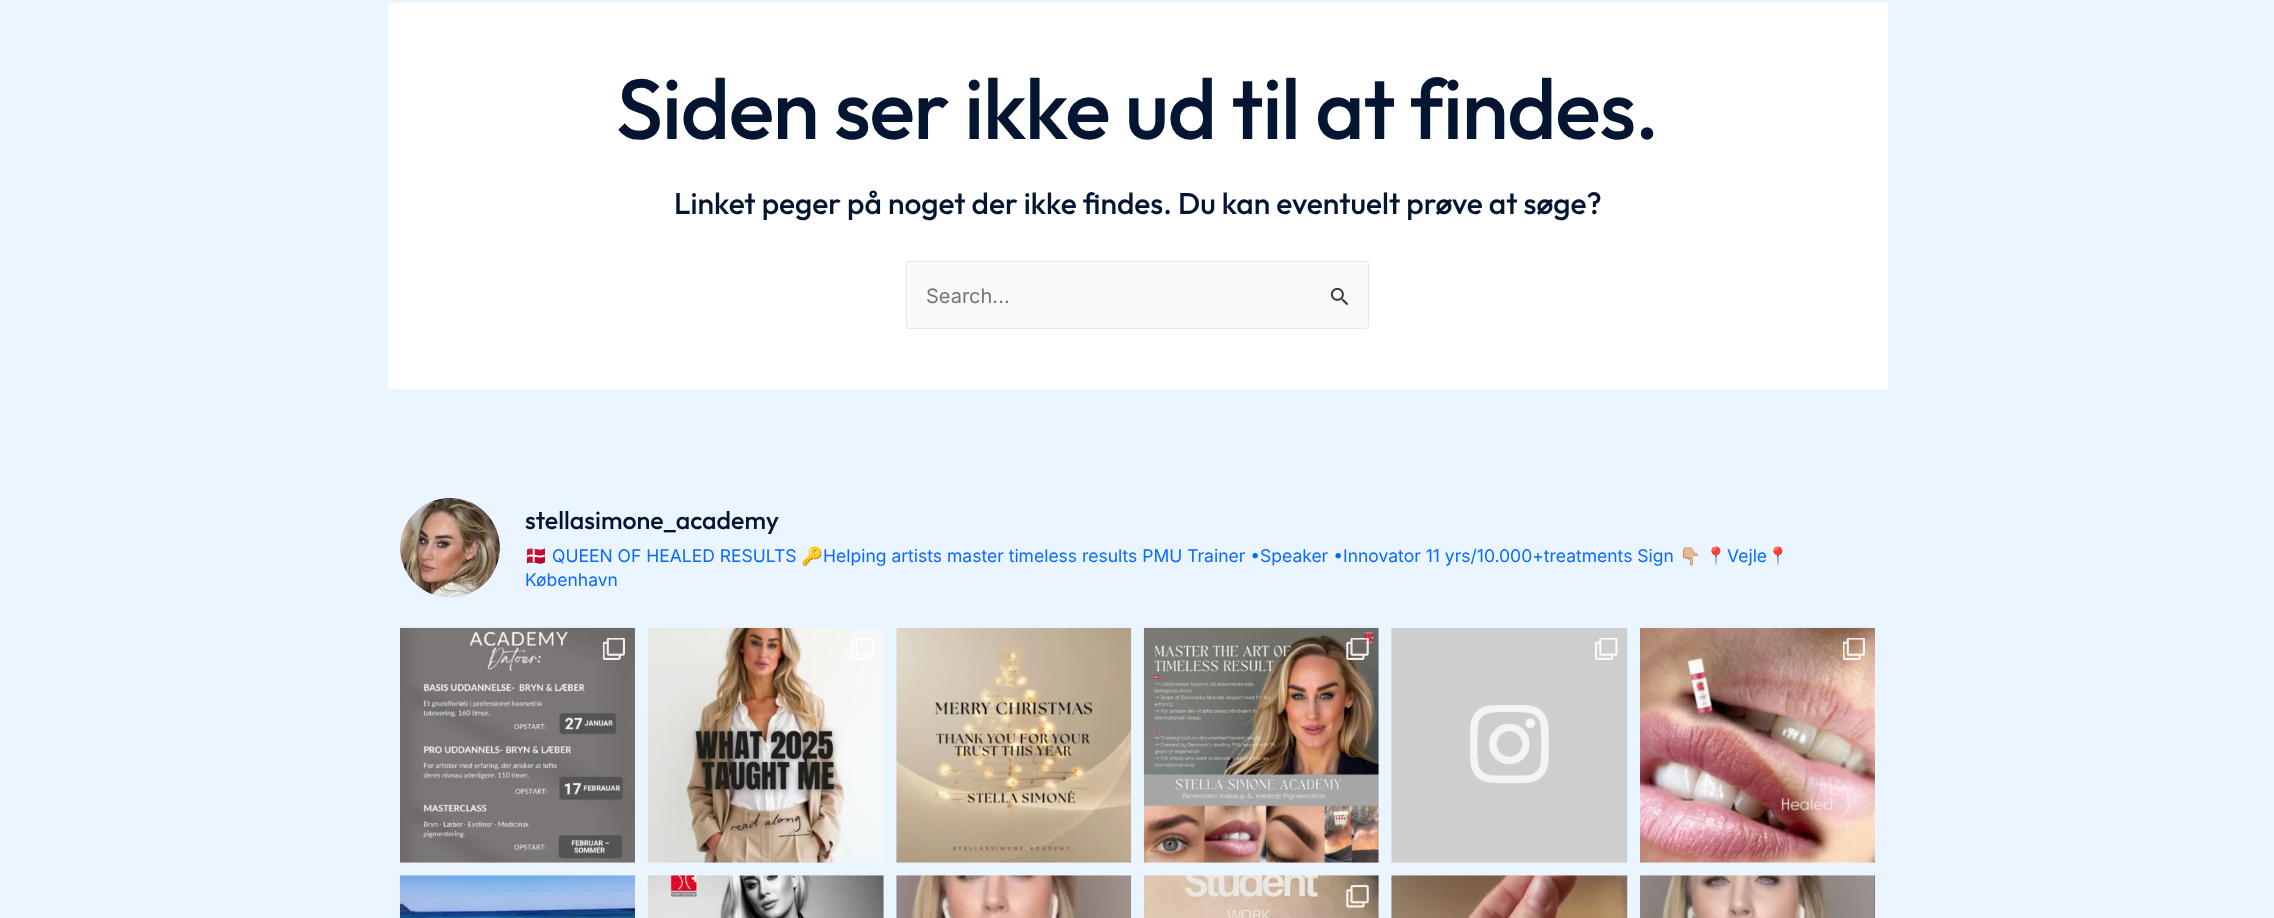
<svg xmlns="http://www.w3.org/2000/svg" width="2274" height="918">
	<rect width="100%" height="100%" fill="#EBF5FF" />
	<rect x="388" y="3" width="1500" height="386" fill="#FFFFFF" />
	<text x="616" y="139" font-family="Outfit" font-size="85" font-weight="500" letter-spacing="-1.25" fill="#031530">Siden ser ikke ud til at findes.</text>
	<text x="674" y="214" font-family="Outfit" font-size="30" font-weight="500" fill="#031530">Linket peger på noget der ikke findes. Du kan eventuelt prøve at søge?</text>
	<rect x="906.5" y="261.5" width="462" height="67" rx="2" fill="#FAFAFA" stroke="#E2E8F0" />
	<text x="926" y="303" font-family="Inter" font-size="20" fill="#757575">Search...</text>
	<image x="1330" y="287" width="18" height="19" href="assets/img1.png" />
	<image x="400" y="498" width="100" height="100" href="assets/img2.png" />
	<text x="525" y="529" font-family="Outfit" font-size="25" font-weight="500" fill="#031530">stellasimone_academy</text>
	<text x="525" y="562" font-family="Noto Color Emoji" font-size="17.5" fill="#086AFE">🇩🇰</text>
	<text x="552" y="562" font-family="Inter" font-size="17.5" fill="#086AFE">QUEEN OF HEALED RESULTS</text>
	<text x="801" y="562" font-family="Noto Color Emoji" font-size="17.5" fill="#086AFE">🔑</text>
	<text x="823" y="562" font-family="Inter" font-size="17.5" fill="#086AFE">Helping artists master timeless results PMU Trainer •Speaker •Innovator 11 yrs/10.000+treatments Sign</text>
	<g font-family="Noto Color Emoji" font-size="17.5" fill="#086AFE">
		<text x="1679" y="562">👇🏼</text>
		<text x="1705" y="562">📍</text>
	</g>
	<text x="1727" y="562" font-family="Inter" font-size="17.5" fill="#086AFE">Vejle</text>
	<text x="1767" y="562" font-family="Noto Color Emoji" font-size="17.5" fill="#086AFE">📍</text>
	<text x="525" y="586" font-family="Inter" font-size="17.5" fill="#086AFE">København</text>
	<image x="400" y="627" width="235" height="236" href="assets/img3.png" />
	<image x="603" y="638" width="22" height="22" href="assets/img4.png" />
	<image x="647" y="627" width="237" height="236" href="assets/img5.png" />
	<image x="851" y="638" width="23" height="22" href="assets/img6.png" />
	<image x="896" y="627" width="236" height="236" href="assets/img7.png" />
	<image x="1143" y="627" width="236" height="236" href="assets/img8.png" />
	<image x="1346" y="638" width="23" height="22" href="assets/img9.png" />
	<image x="1391" y="628" width="237" height="235" href="assets/img10.png" />
	<image x="1595" y="638" width="23" height="22" href="assets/img11.png" />
	<image x="1640" y="627" width="235" height="236" href="assets/img12.png" />
	<image x="1843" y="638" width="22" height="22" href="assets/img13.png" />
	<image x="400" y="875" width="235" height="43" href="assets/img14.png" />
	<image x="647" y="875" width="237" height="43" href="assets/img15.png" />
	<image x="896" y="875" width="236" height="43" href="assets/img16.png" />
	<image x="1143" y="875" width="236" height="43" href="assets/img17.png" />
	<image x="1346" y="885" width="23" height="23" href="assets/img18.png" />
	<image x="1391" y="875" width="237" height="43" href="assets/img19.png" />
	<image x="1640" y="875" width="235" height="43" href="assets/img20.png" />
</svg>
